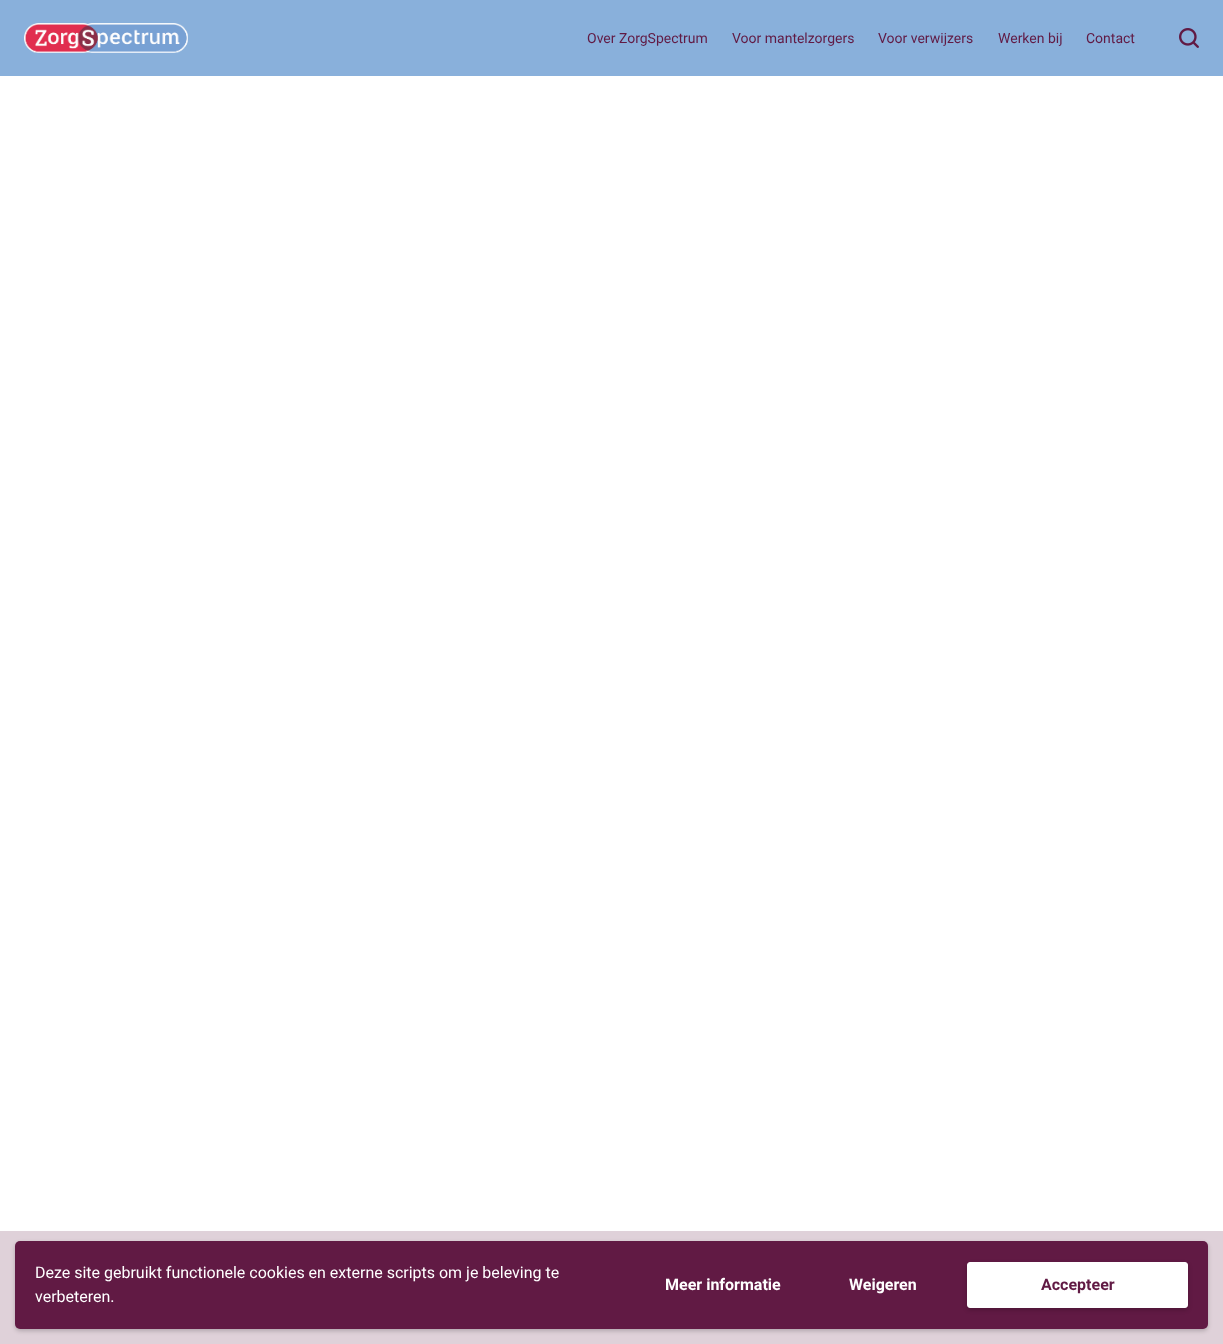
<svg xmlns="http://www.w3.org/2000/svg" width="1223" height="1344">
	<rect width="100%" height="100%" fill="#FFFFFF" />
	<rect x="0" y="0" width="1223" height="76" fill="#89B0DB" />
	<image x="24" y="23" width="164" height="30" href="assets/img1.png" />
	<g font-family="Roboto" font-size="14" fill="#611A44">
		<text x="587" y="43">Over ZorgSpectrum</text>
		<text x="732" y="43">Voor mantelzorgers</text>
		<text x="878" y="43">Voor verwijzers</text>
		<text x="998" y="43">Werken bij</text>
		<text x="1086" y="43">Contact</text>
	</g>
	<image x="1179" y="28" width="20" height="20" href="assets/img2.png" />
	<rect x="0" y="1231" width="1223" height="113" fill="#DFD1D9" />
	<rect x="15" y="1243" width="1193" height="88" rx="5" fill="#000000" fill-opacity="0.2" filter="blur(2px)" />
	<rect x="15" y="1241" width="1193" height="88" rx="5" fill="#611A44" />
	<g font-family="Roboto" font-size="16" fill="#FFFFFF">
		<text x="35" y="1278">Deze site gebruikt functionele cookies en externe scripts om je beleving te</text>
		<text x="35" y="1302">verbeteren.</text>
	</g>
	<g font-family="Roboto" font-size="16" font-weight="700" fill="#FFFFFF">
		<text x="665" y="1290">Meer informatie</text>
		<text x="849" y="1290">Weigeren</text>
	</g>
	<rect x="967" y="1264" width="221" height="46" rx="3" fill="#000000" fill-opacity="0.2" filter="blur(2px)" />
	<rect x="967.5" y="1262.5" width="220" height="45" rx="2.5" fill="#FFFFFF" stroke="#FFFFFF" />
	<text x="1041" y="1290" font-family="Roboto" font-size="16" font-weight="700" fill="#611A44">Accepteer</text>
</svg>
